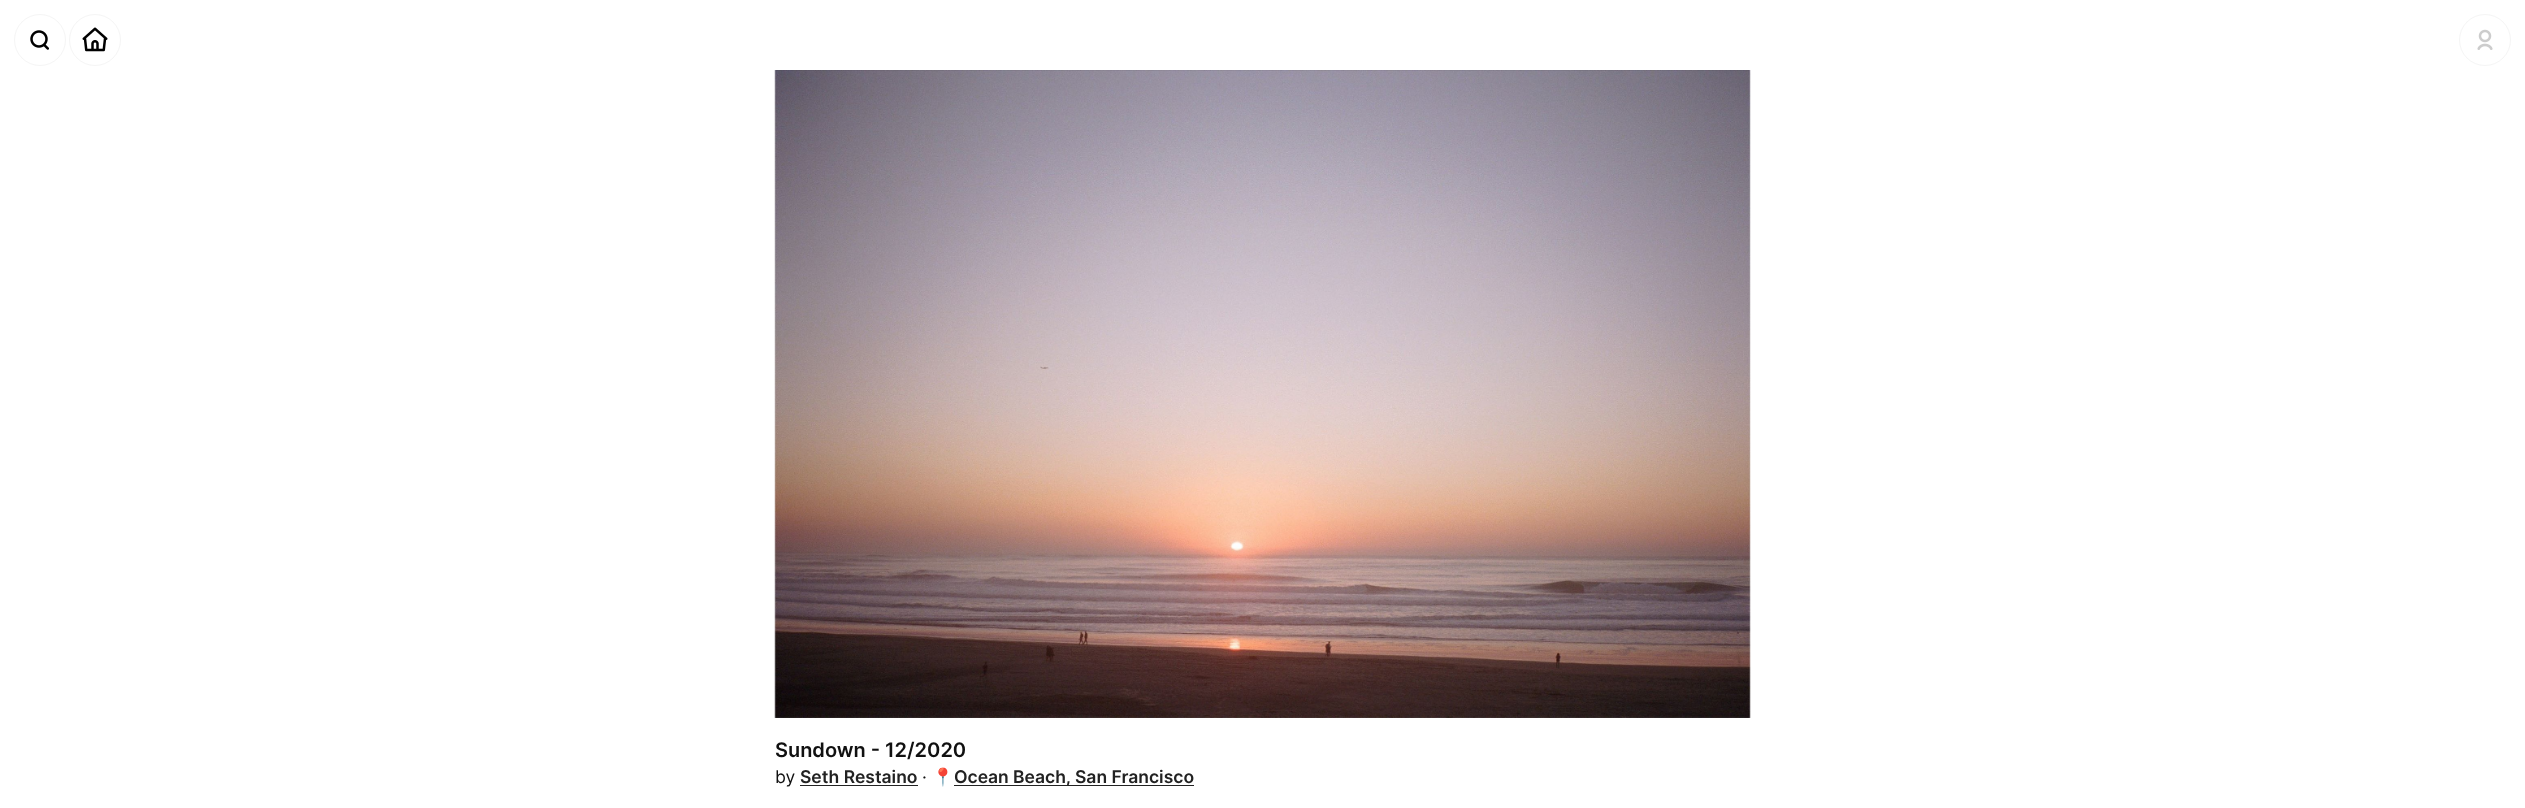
<svg xmlns="http://www.w3.org/2000/svg" width="2525" height="808">
	<rect width="100%" height="100%" fill="#FFFFFF" />
	<circle cx="40" cy="40" r="25.5" fill="none" stroke="#F5F5F5" />
	<image x="30" y="30" width="19" height="20" href="assets/img1.png" />
	<circle cx="95" cy="40" r="25.5" fill="none" stroke="#F5F5F5" />
	<image x="82" y="27" width="26" height="25" href="assets/img2.png" />
	<circle cx="2485" cy="40" r="25.5" fill="none" stroke="#F5F5F5" />
	<image x="2477" y="29" width="16" height="21" href="assets/img3.png" />
	<image x="774" y="70" width="977" height="648" href="assets/img4.png" />
	<rect x="775.5" y="70.5" width="974" height="647" fill="none" stroke="#000000" stroke-opacity="0.05" />
	<text x="775" y="757" font-family="Inter" font-size="20" font-weight="600" fill="#111111">Sundown - 12/2020</text>
	<text x="775" y="783" font-family="Inter" font-size="17.5" fill="#111111">by</text>
	<text x="800" y="783" font-family="Inter" font-size="17.5" font-weight="600" fill="#222222">Seth Restaino</text>
	<rect x="800" y="785" width="118" height="1" fill="#222222" />
	<text x="922" y="783" font-family="Inter" font-size="17.5" fill="#111111">·</text>
	<text x="932" y="783" font-family="Noto Color Emoji" font-size="17.5" fill="#111111">📍</text>
	<rect x="954" y="785" width="240" height="1" fill="#222222" />
	<text x="954" y="783" font-family="Inter" font-size="17.5" font-weight="600" fill="#222222">Ocean Beach, San Francisco</text>
</svg>
